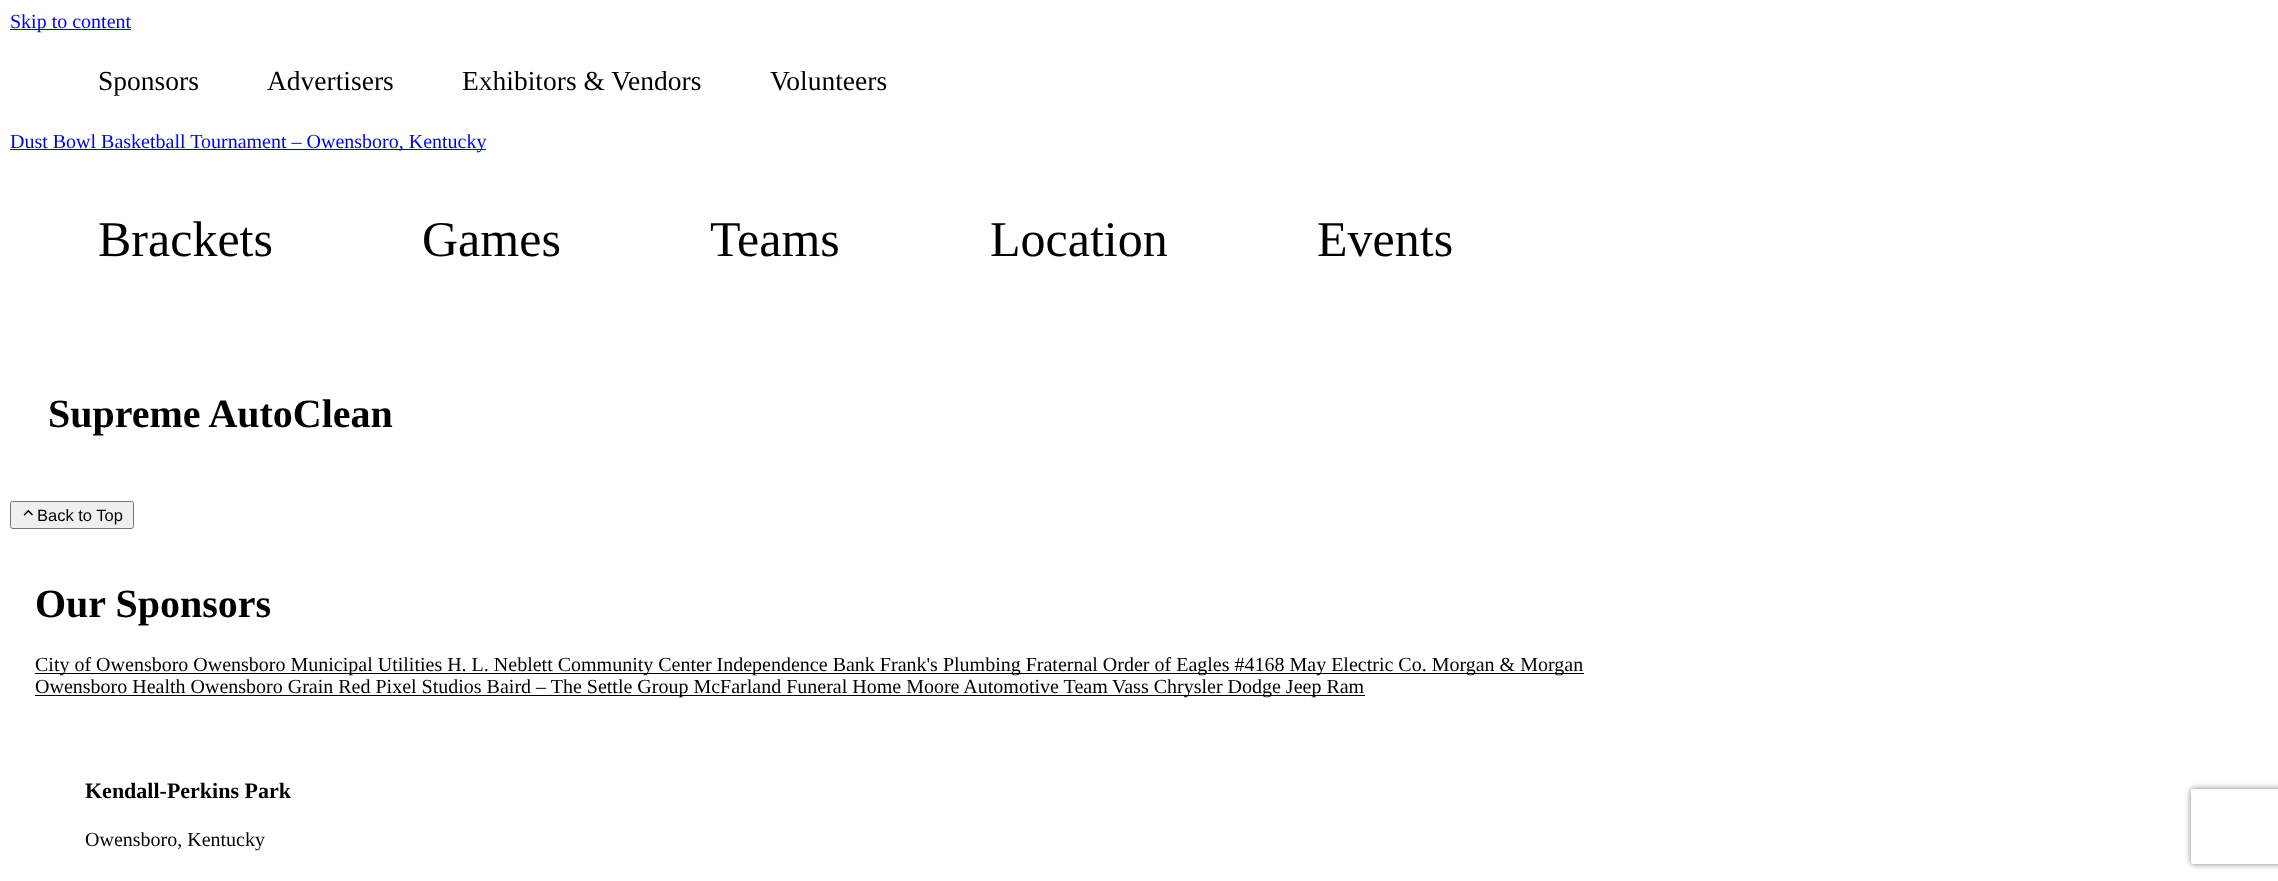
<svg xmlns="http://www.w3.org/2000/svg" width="2278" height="881">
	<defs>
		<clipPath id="clip1"><path d="M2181 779H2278V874H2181ZM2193.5 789H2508.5C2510 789 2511 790 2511 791.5V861.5C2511 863 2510 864 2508.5 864H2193.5C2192 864 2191 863 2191 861.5V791.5C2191 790 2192 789 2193.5 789Z" clip-rule="evenodd" /></clipPath>
	</defs>
	<rect width="100%" height="100%" fill="#FFFFFF" />
	<rect x="10" y="29" width="121" height="1" fill="#0000EE" />
	<text x="10" y="28" font-family="Liberation Serif" font-size="20" fill="#0000EE">Skip to content</text>
	<g font-family="Liberation Serif" font-size="27.5" fill="#000000">
		<text x="98" y="90">Sponsors</text>
		<text x="267" y="90">Advertisers</text>
		<text x="462" y="90">Exhibitors &amp; Vendors</text>
		<text x="770" y="90">Volunteers</text>
	</g>
	<rect x="10" y="149" width="476" height="1" fill="#0000EE" />
	<text x="10" y="148" font-family="Liberation Serif" font-size="20" fill="#0000EE">Dust Bowl Basketball Tournament – Owensboro, Kentucky</text>
	<g font-family="Liberation Serif" font-size="50" fill="#000000">
		<text x="98" y="256">Brackets</text>
		<text x="422" y="256">Games</text>
		<text x="710" y="256">Teams</text>
		<text x="990" y="256">Location</text>
		<text x="1317" y="256">Events</text>
	</g>
	<text x="48" y="427" font-family="Liberation Serif" font-size="40" font-weight="700" fill="#000000">Supreme AutoClean</text>
	<rect x="10.5" y="501.5" width="123" height="27" rx="2" fill="#EFEFEF" stroke="#767676" />
	<image x="23" y="509" width="10" height="7" href="assets/img1.png" />
	<text x="37" y="521" font-family="Liberation Sans" font-size="16.5" fill="#000000">Back to Top</text>
	<text x="35" y="617" font-family="Liberation Serif" font-size="40" font-weight="700" fill="#000000">Our Sponsors</text>
	<rect x="35" y="673" width="1549" height="1" fill="#000000" />
	<text x="35" y="671" font-family="Liberation Serif" font-size="20" fill="#000000">City of Owensboro Owensboro Municipal Utilities H. L. Neblett Community Center Independence Bank Frank's Plumbing Fraternal Order of Eagles #4168 May Electric Co. Morgan &amp; Morgan</text>
	<rect x="35" y="695" width="1330" height="1" fill="#000000" />
	<g font-family="Liberation Serif" font-size="20" fill="#000000">
		<text x="35" y="693">Owensboro Health Owensboro Grain Red Pixel Studios Baird – The Settle Group McFarland Funeral Home Moore Automotive Team</text>
		<text x="1112" y="693">Vass Chrysler Dodge Jeep Ram</text>
	</g>
	<text x="85" y="798" font-family="Liberation Serif" font-size="22" font-weight="700" fill="#000000">Kendall-Perkins Park</text>
	<text x="85" y="846" font-family="Liberation Serif" font-size="20" fill="#000000">Owensboro, Kentucky</text>
	<g clip-path="url(#clip1)">
		<rect x="2191" y="789" width="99" height="75" rx="2.5" fill="#808080" filter="blur(3px)" />
	</g>
</svg>
